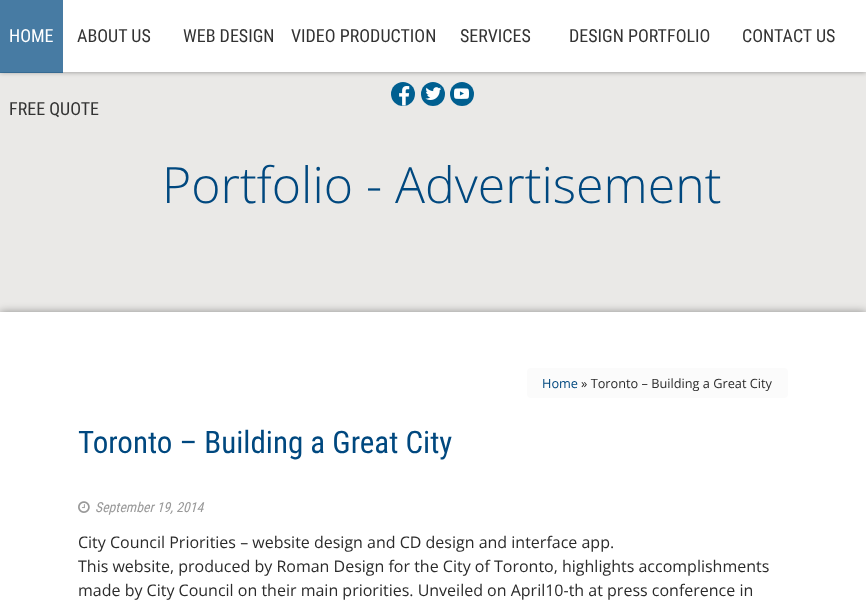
<svg xmlns="http://www.w3.org/2000/svg" width="866" height="602">
	<rect width="100%" height="100%" fill="#EAE9E7" />
	<rect x="0" y="0" width="866" height="72" fill="#000000" fill-opacity="0.4" filter="blur(2.5px)" />
	<rect x="0" y="0" width="866" height="72" fill="#FFFFFF" />
	<rect x="0" y="0" width="63" height="73" fill="#00487F" fill-opacity="0.72" />
	<text x="9" y="42" font-family="Roboto Condensed" font-size="18" fill="#FFFFFF">HOME</text>
	<g font-family="Roboto Condensed" font-size="18" fill="#333333">
		<text x="77" y="42">ABOUT US</text>
		<text x="183" y="42">WEB DESIGN</text>
		<text x="291" y="42">VIDEO PRODUCTION</text>
		<text x="460" y="42">SERVICES</text>
		<text x="569" y="42">DESIGN PORTFOLIO</text>
		<text x="742" y="42">CONTACT US</text>
		<text x="9" y="115">FREE QUOTE</text>
	</g>
	<circle cx="403" cy="94" r="12" fill="#005F90" />
	<image x="399" y="86" width="11" height="20" href="assets/img1.png" />
	<circle cx="433" cy="94" r="12" fill="#005F90" />
	<image x="425" y="87" width="17" height="13" href="assets/img2.png" />
	<circle cx="462" cy="94" r="12" fill="#005F90" />
	<image x="454" y="88" width="15" height="11" href="assets/img3.png" />
	<text x="162" y="203" font-family="Open Sans" font-size="50" font-weight="300" fill="#00487F">Portfolio - Advertisement</text>
	<rect x="0" y="312" width="866" height="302" fill="#000000" fill-opacity="0.4" filter="blur(4px)" />
	<rect x="0" y="312" width="866" height="290" fill="#FFFFFF" />
	<rect x="527" y="368" width="261" height="30" rx="4" fill="#FBFBFB" />
	<text x="542" y="388" font-family="Open Sans" font-size="12.75" fill="#00487F">Home</text>
	<text x="581" y="388" font-family="Open Sans" font-size="12.75" fill="#2B2B2B">» Toronto – Building a Great City</text>
	<text x="78" y="453" font-family="Roboto Condensed" font-size="31" fill="#00487F">Toronto – Building a Great City</text>
	<image x="78" y="501" width="12" height="12" href="assets/img4.png" />
	<text x="95" y="512" font-family="Roboto Condensed" font-size="13.75" font-style="italic" fill="#999999">September 19, 2014</text>
	<g font-family="Open Sans" font-size="16" fill="#2B2B2B">
		<text x="78" y="548">City Council Priorities – website design and CD design and interface app.</text>
		<text x="78" y="572">This website, produced by Roman Design for the City of Toronto, highlights accomplishments</text>
		<text x="78" y="596">made by City Council on their main priorities. Unveiled on April10-th at press conference in</text>
	</g>
</svg>
